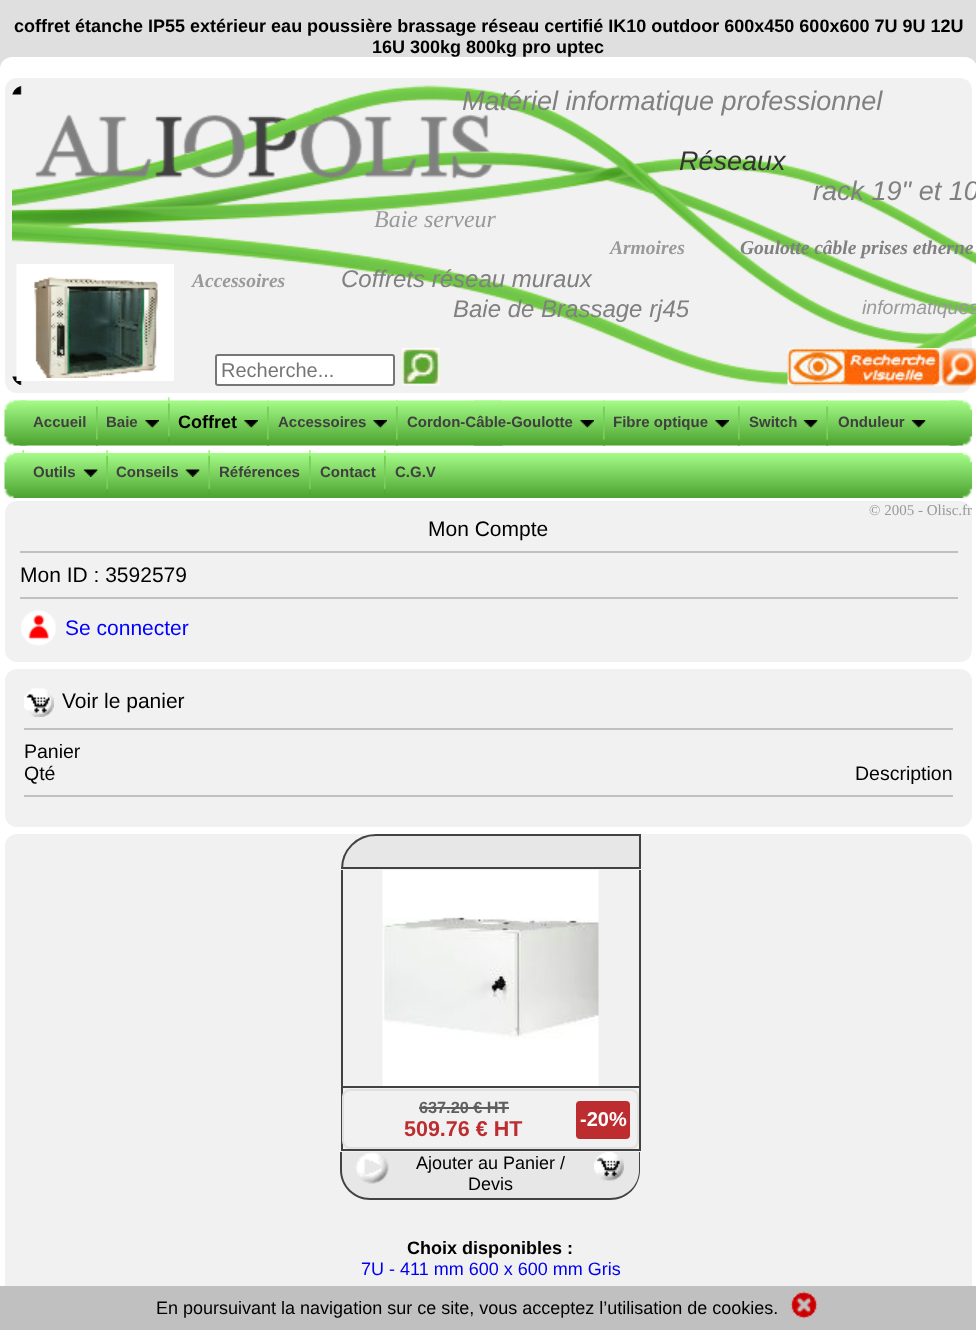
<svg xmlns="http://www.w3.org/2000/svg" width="976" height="1330">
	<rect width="100%" height="100%" fill="#DFDFDF" />
	<g font-family="Liberation Sans" font-size="18" font-weight="700" fill="#000000">
		<text x="14" y="32">coffret étanche IP55 extérieur eau poussière brassage réseau certifié IK10 outdoor 600x450 600x600 7U 9U 12U</text>
		<text x="372" y="53">16U 300kg 800kg pro uptec</text>
	</g>
	<rect x="0" y="57" width="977" height="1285" rx="12" fill="#FFFFFF" />
	<rect x="5" y="78" width="967" height="315" rx="12" fill="#F1F1F1" />
	<image x="12" y="85" width="964" height="301" href="assets/img1.png" />
	<text x="462" y="110" font-family="Liberation Sans" font-size="27" font-style="italic" fill="#808080">Matériel informatique professionnel</text>
	<text x="679" y="170" font-family="Liberation Sans" font-size="27" font-style="italic" fill="#333333">Réseaux</text>
	<text x="813" y="200" font-family="Liberation Sans" font-size="27" font-style="italic" fill="#808080">rack 19" et 10</text>
	<text x="374" y="227" font-family="Liberation Serif" font-size="24" font-style="italic" fill="#999999">Baie serveur</text>
	<text x="610" y="254" font-family="Liberation Serif" font-size="19.5" font-weight="700" font-style="italic" fill="#999999">Armoires</text>
	<text x="740" y="254" font-family="Liberation Serif" font-size="19.5" font-weight="700" font-style="italic" fill="#808080">Goulotte câble prises etherne</text>
	<image x="16" y="264" width="1" height="117" href="assets/img2.png" />
	<rect x="17" y="264" width="157" height="117" fill="#FFFFFF" />
	<image x="34" y="277" width="124" height="101" href="assets/img3.png" />
	<text x="192" y="287" font-family="Liberation Serif" font-size="19.5" font-weight="700" font-style="italic" fill="#999999">Accessoires</text>
	<g font-family="Liberation Sans" font-size="24" font-style="italic" fill="#808080">
		<text x="341" y="287">Coffrets réseau muraux</text>
		<text x="453" y="317">Baie de Brassage rj45</text>
	</g>
	<text x="862" y="314" font-family="Liberation Sans" font-size="19.5" font-style="italic" fill="#999999">informatiques</text>
	<rect x="216" y="355" width="178" height="30" rx="2" fill="#FFFFFF" stroke="#767676" stroke-width="2" />
	<text x="221" y="377" font-family="Liberation Sans" font-size="20" fill="#757575">Recherche...</text>
	<image x="402" y="348" width="38" height="38" href="assets/img4.png" />
	<image x="787" y="348" width="189" height="38" href="assets/img5.png" />
	<image x="19" y="400" width="484" height="46" href="assets/img7.png" />
	<image x="4" y="400" width="23" height="46" href="assets/img6.png" />
	<image x="474" y="400" width="483" height="46" href="assets/img8.png" />
	<image x="949" y="400" width="23" height="46" href="assets/img9.png" />
	<image x="4" y="453" width="20" height="45" href="assets/img10.png" />
	<text x="33" y="427" font-family="Liberation Sans" font-size="15" font-weight="700" fill="#404040">Accueil</text>
	<image x="96" y="400" width="2" height="46" href="assets/img11.png" />
	<image x="96" y="400" width="2" height="46" href="assets/img12.png" />
	<text x="106" y="427" font-family="Liberation Sans" font-size="15" font-weight="700" fill="#404040">Baie</text>
	<image x="145" y="420" width="14" height="8" href="assets/img13.png" />
	<image x="168" y="397" width="2" height="45" href="assets/img14.png" />
	<image x="168" y="397" width="2" height="39" href="assets/img15.png" />
	<text x="178" y="428" font-family="Liberation Sans" font-size="18" font-weight="700" fill="#000000">Coffret</text>
	<image x="244" y="420" width="14" height="8" href="assets/img13.png" />
	<image x="267" y="400" width="2" height="46" href="assets/img11.png" />
	<image x="267" y="400" width="2" height="46" href="assets/img12.png" />
	<text x="278" y="427" font-family="Liberation Sans" font-size="15" font-weight="700" fill="#404040">Accessoires</text>
	<image x="373" y="420" width="14" height="8" href="assets/img16.png" />
	<image x="396" y="400" width="2" height="46" href="assets/img11.png" />
	<image x="396" y="400" width="2" height="46" href="assets/img12.png" />
	<text x="407" y="427" font-family="Liberation Sans" font-size="15" font-weight="700" fill="#404040">Cordon-Câble-Goulotte</text>
	<image x="580" y="420" width="14" height="8" href="assets/img16.png" />
	<image x="603" y="400" width="2" height="46" href="assets/img11.png" />
	<image x="603" y="400" width="2" height="46" href="assets/img12.png" />
	<text x="613" y="427" font-family="Liberation Sans" font-size="15" font-weight="700" fill="#404040">Fibre optique</text>
	<image x="715" y="420" width="14" height="8" href="assets/img16.png" />
	<image x="738" y="400" width="2" height="46" href="assets/img11.png" />
	<image x="738" y="400" width="2" height="46" href="assets/img12.png" />
	<text x="749" y="427" font-family="Liberation Sans" font-size="15" font-weight="700" fill="#404040">Switch</text>
	<image x="803" y="420" width="15" height="8" href="assets/img17.png" />
	<image x="826" y="400" width="2" height="46" href="assets/img18.png" />
	<image x="826" y="400" width="2" height="46" href="assets/img19.png" />
	<text x="838" y="427" font-family="Liberation Sans" font-size="15" font-weight="700" fill="#404040">Onduleur</text>
	<image x="911" y="420" width="15" height="8" href="assets/img17.png" />
	<image x="22" y="450" width="2" height="3" href="assets/img20.png" />
	<image x="22" y="450" width="1" height="3" href="assets/img21.png" />
	<image x="24" y="453" width="478" height="45" href="assets/img26.png" />
	<text x="33" y="477" font-family="Liberation Sans" font-size="15" font-weight="700" fill="#404040">Outils</text>
	<image x="83" y="469" width="15" height="8" href="assets/img22.png" />
	<image x="106" y="450" width="2" height="45" href="assets/img23.png" />
	<image x="106" y="450" width="1" height="39" href="assets/img24.png" />
	<text x="116" y="477" font-family="Liberation Sans" font-size="15" font-weight="700" fill="#404040">Conseils</text>
	<image x="185" y="469" width="15" height="8" href="assets/img22.png" />
	<image x="208" y="450" width="2" height="45" href="assets/img23.png" />
	<image x="208" y="450" width="1" height="39" href="assets/img24.png" />
	<text x="219" y="477" font-family="Liberation Sans" font-size="15" font-weight="700" fill="#404040">Références</text>
	<image x="309" y="450" width="2" height="45" href="assets/img25.png" />
	<image x="310" y="450" width="1" height="39" href="assets/img24.png" />
	<text x="320" y="477" font-family="Liberation Sans" font-size="15" font-weight="700" fill="#404040">Contact</text>
	<image x="384" y="450" width="2" height="45" href="assets/img25.png" />
	<image x="385" y="450" width="1" height="39" href="assets/img24.png" />
	<text x="395" y="477" font-family="Liberation Sans" font-size="15" font-weight="700" fill="#404040">C.G.V</text>
	<image x="502" y="453" width="455" height="45" href="assets/img27.png" />
	<image x="957" y="453" width="15" height="45" href="assets/img28.png" />
	<rect x="5" y="501" width="967" height="161" rx="12" fill="#F1F1F1" />
	<text x="869" y="515" font-family="Liberation Serif" font-size="15" fill="#999999">© 2005 - Olisc.fr</text>
	<text x="428" y="536" font-family="Liberation Sans" font-size="21" fill="#000000">Mon Compte</text>
	<rect x="20" y="551" width="938" height="2" fill="#C0C0C0" />
	<text x="20" y="582" font-family="Liberation Sans" font-size="21" fill="#000000">Mon ID : 3592579</text>
	<rect x="20" y="597" width="938" height="2" fill="#C0C0C0" />
	<image x="21" y="610" width="35" height="36" href="assets/img29.png" />
	<text x="65" y="635" font-family="Liberation Sans" font-size="21" fill="#0000FF">Se connecter</text>
	<rect x="5" y="669" width="967" height="158" rx="12" fill="#F1F1F1" />
	<image x="24" y="688" width="30" height="29" href="assets/img30.png" />
	<text x="62" y="708" font-family="Liberation Sans" font-size="21" fill="#000000">Voir le panier</text>
	<rect x="24" y="728" width="929" height="2" fill="#C0C0C0" />
	<g font-family="Liberation Sans" font-size="19.5" fill="#000000">
		<text x="24" y="758">Panier</text>
		<text x="24" y="780">Qté</text>
		<text x="855" y="780">Description</text>
	</g>
	<rect x="24" y="795" width="929" height="2" fill="#C0C0C0" />
	<rect x="5" y="834" width="967" height="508" rx="12" fill="#F1F1F1" />
	<path d="M376 835H640V868H342V869C342 850 357 835 376 835Z" fill="#E7E7E7" stroke="#424242" stroke-width="2" />
	<rect x="639" y="870" width="2" height="281" fill="#424242" />
	<rect x="341" y="1086" width="300" height="2" fill="#424242" />
	<rect x="341" y="870" width="2" height="218" fill="#424242" />
	<image x="382" y="870" width="217" height="216" href="assets/img31.png" />
	<rect x="341" y="1149" width="300" height="2" fill="#424242" />
	<rect x="341" y="1088" width="2" height="63" fill="#424242" />
	<rect x="343" y="1090" width="295" height="58" rx="7" fill="none" stroke="#E0E0E0" stroke-width="2" />
	<text x="419" y="1113" font-family="Liberation Sans" font-size="16.25" font-weight="700" fill="#5F5F5F">637.20 € HT</text>
	<rect x="419" y="1107" width="90" height="2" fill="#5F5F5F" />
	<text x="404" y="1136" font-family="Liberation Sans" font-size="21.5" font-weight="700" fill="#BD2D30">509.76 € HT</text>
	<rect x="576" y="1101" width="54" height="38" rx="4" fill="#BD2D30" />
	<text x="580" y="1126" font-family="Liberation Sans" font-size="20" font-weight="700" fill="#FFFFFF">-20%</text>
	<path d="M342 1152H639V1170C639 1186 626 1199 610 1199H371C355 1199 342 1186 342 1170Z" fill="#E7E7E7" />
	<path d="M340 1152H640V1170C640 1187 627 1200 610 1200H370C354 1200 340 1187 340 1170ZM342 1152H639V1170C639 1186 626 1198 610 1198H370C355 1198 342 1186 342 1170Z" fill="#424242" fill-rule="evenodd" />
	<image x="355" y="1152" width="34" height="32" href="assets/img32.png" />
	<g font-family="Liberation Sans" font-size="18" fill="#000000">
		<text x="416" y="1169">Ajouter au Panier /</text>
		<text x="468" y="1190">Devis</text>
	</g>
	<image x="594" y="1152" width="30" height="29" href="assets/img33.png" />
	<text x="407" y="1254" font-family="Liberation Sans" font-size="18" font-weight="700" fill="#000000">Choix disponibles :</text>
	<text x="361" y="1275" font-family="Liberation Sans" font-size="18" fill="#0000EE">7U - 411 mm 600 x 600 mm Gris</text>
	<rect x="0" y="1286" width="976" height="44" fill="#C0C0C0" />
	<text x="156" y="1314" font-family="Liberation Sans" font-size="18" fill="#000000">En poursuivant la navigation sur ce site, vous acceptez l’utilisation de cookies.</text>
	<image x="790" y="1291" width="28" height="28" href="assets/img34.png" />
</svg>
